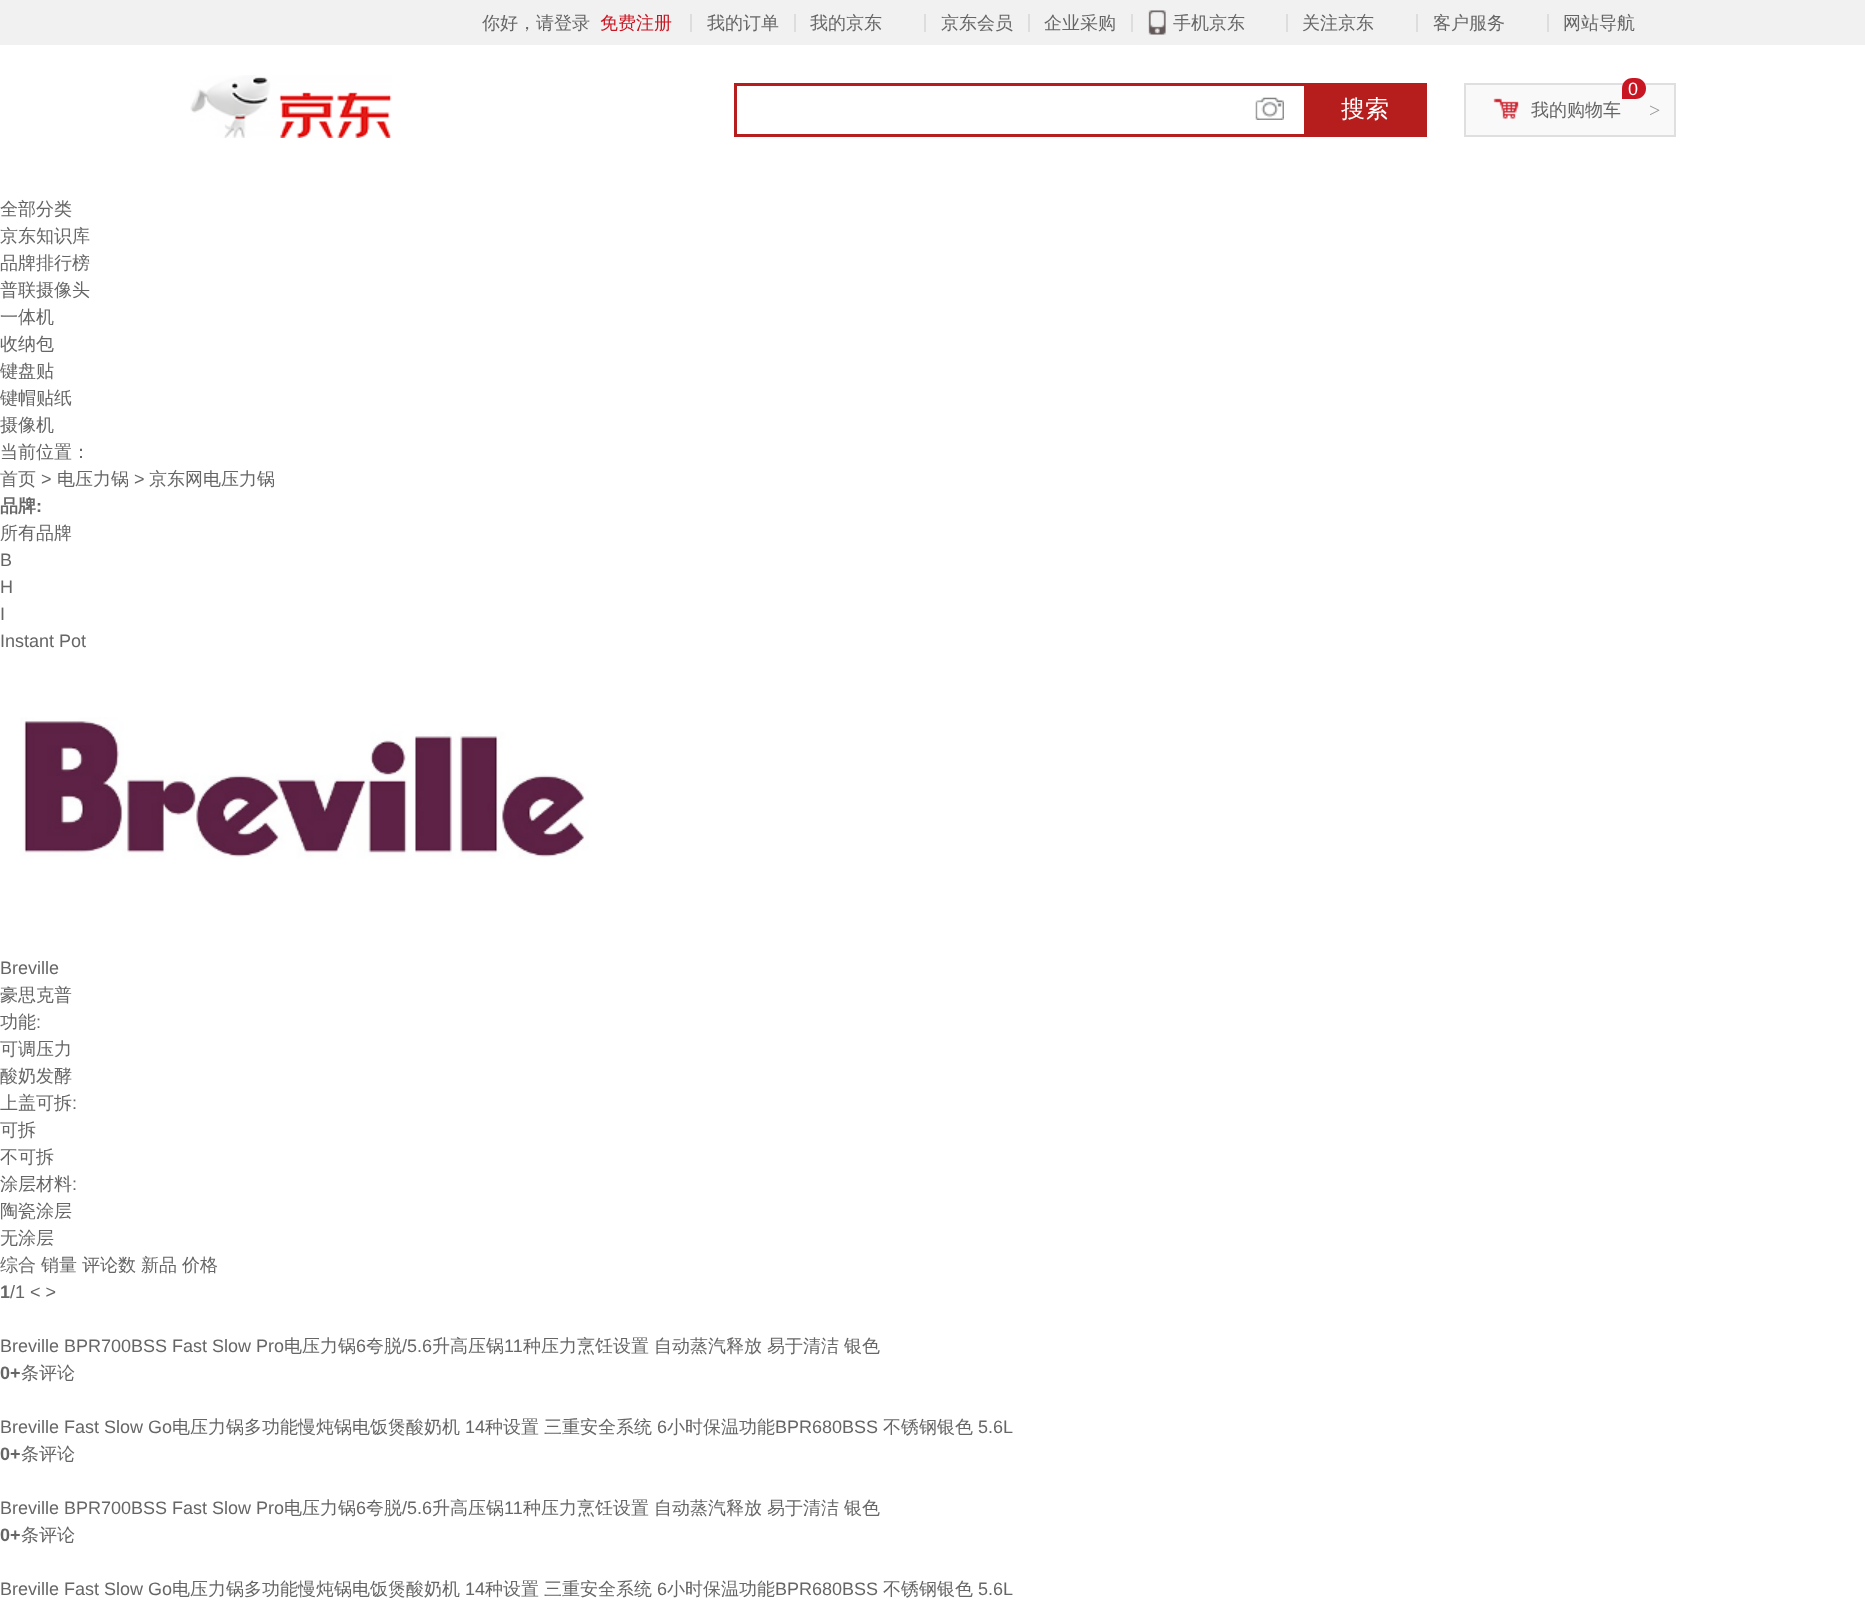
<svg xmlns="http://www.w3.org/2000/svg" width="1865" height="1605">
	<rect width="100%" height="100%" fill="#FFFFFF" />
	<rect x="0" y="0" width="1865" height="45" fill="#F1F1F1" />
	<text x="482" y="29" font-family="WenQuanYi Zen Hei" font-size="18" font-weight="500" fill="#666666">你好，请登录</text>
	<text x="600" y="29" font-family="WenQuanYi Zen Hei" font-size="18" font-weight="500" fill="#C81623">免费注册</text>
	<rect x="690" y="14" width="2" height="18" fill="#DDDDDD" />
	<text x="707" y="29" font-family="WenQuanYi Zen Hei" font-size="18" font-weight="500" fill="#666666">我的订单</text>
	<rect x="794" y="14" width="2" height="18" fill="#DDDDDD" />
	<text x="810" y="29" font-family="WenQuanYi Zen Hei" font-size="18" font-weight="500" fill="#666666">我的京东</text>
	<rect x="924" y="14" width="2" height="18" fill="#DDDDDD" />
	<text x="941" y="29" font-family="WenQuanYi Zen Hei" font-size="18" font-weight="500" fill="#666666">京东会员</text>
	<rect x="1028" y="14" width="2" height="18" fill="#DDDDDD" />
	<text x="1044" y="29" font-family="WenQuanYi Zen Hei" font-size="18" font-weight="500" fill="#666666">企业采购</text>
	<rect x="1131" y="14" width="2" height="18" fill="#DDDDDD" />
	<image x="1148" y="10" width="18" height="25" href="assets/img1.png" />
	<text x="1173" y="29" font-family="WenQuanYi Zen Hei" font-size="18" font-weight="500" fill="#666666">手机京东</text>
	<rect x="1286" y="14" width="2" height="18" fill="#DDDDDD" />
	<text x="1302" y="29" font-family="WenQuanYi Zen Hei" font-size="18" font-weight="500" fill="#666666">关注京东</text>
	<rect x="1416" y="14" width="2" height="18" fill="#DDDDDD" />
	<text x="1433" y="29" font-family="WenQuanYi Zen Hei" font-size="18" font-weight="500" fill="#666666">客户服务</text>
	<rect x="1547" y="14" width="2" height="18" fill="#DDDDDD" />
	<text x="1563" y="29" font-family="WenQuanYi Zen Hei" font-size="18" font-weight="500" fill="#666666">网站导航</text>
	<image x="190" y="75" width="202" height="63" href="assets/img2.png" />
	<rect x="734" y="83" width="570" height="3" fill="#B61D1D" />
	<rect x="734" y="134" width="570" height="3" fill="#B61D1D" />
	<rect x="734" y="83" width="3" height="54" fill="#B61D1D" />
	<image x="1255" y="97" width="29" height="23" href="assets/img3.png" />
	<rect x="1304" y="83" width="123" height="54" fill="#B61D1D" />
	<text x="1341" y="117" font-family="WenQuanYi Zen Hei" font-size="24" font-weight="500" fill="#FFFFFF">搜索</text>
	<rect x="1465" y="84" width="210" height="52" fill="#F9F9F9" stroke="#DFDFDF" stroke-width="2" />
	<path d="M1632.5 78H1635.5C1641.5 78 1646 82.5 1646 88.5C1646 94.5 1641.5 99 1635.5 99H1622V88.5C1622 82.5 1626.5 78 1632.5 78Z" fill="#C81623" />
	<text x="1628" y="95" font-family="Liberation Sans" font-size="18" fill="#FFFFFF">0</text>
	<image x="1493" y="98" width="26" height="21" href="assets/img4.png" />
	<text x="1531" y="116" font-family="WenQuanYi Zen Hei" font-size="18" font-weight="500" fill="#666666">我的购物车</text>
	<text x="1649" y="117" font-family="Liberation Serif" font-size="20" fill="#999999">&gt;</text>
	<g font-family="WenQuanYi Zen Hei" font-size="18" font-weight="500" fill="#666666">
		<text x="0" y="215">全部分类</text>
		<text x="0" y="242">京东知识库</text>
		<text x="0" y="269">品牌排行榜</text>
		<text x="0" y="296">普联摄像头</text>
		<text x="0" y="323">一体机</text>
		<text x="0" y="350">收纳包</text>
		<text x="0" y="377">键盘贴</text>
		<text x="0" y="404">键帽贴纸</text>
		<text x="0" y="431">摄像机</text>
		<text x="0" y="458">当前位置：</text>
		<text x="0" y="485">首页</text>
	</g>
	<text x="41" y="485" font-family="Liberation Sans" font-size="18" fill="#666666">&gt;</text>
	<text x="57" y="485" font-family="WenQuanYi Zen Hei" font-size="18" font-weight="500" fill="#666666">电压力锅</text>
	<text x="134" y="485" font-family="Liberation Sans" font-size="18" fill="#666666">&gt;</text>
	<text x="149" y="485" font-family="WenQuanYi Zen Hei" font-size="18" font-weight="500" fill="#666666">京东网电压力锅</text>
	<text x="0" y="512" font-family="WenQuanYi Zen Hei" font-size="18" font-weight="700" fill="#666666">品牌</text>
	<text x="36" y="512" font-family="Liberation Sans" font-size="18" font-weight="700" fill="#666666">:</text>
	<text x="0" y="539" font-family="WenQuanYi Zen Hei" font-size="18" font-weight="500" fill="#666666">所有品牌</text>
	<g font-family="Liberation Sans" font-size="18" fill="#666666">
		<text x="0" y="566">B</text>
		<text x="0" y="593">H</text>
		<text x="0" y="620">I</text>
		<text x="0" y="647">Instant Pot</text>
	</g>
	<image x="20" y="717" width="569" height="142" href="assets/img5.png" />
	<text x="0" y="974" font-family="Liberation Sans" font-size="18" fill="#666666">Breville</text>
	<g font-family="WenQuanYi Zen Hei" font-size="18" font-weight="500" fill="#666666">
		<text x="0" y="1001">豪思克普</text>
		<text x="0" y="1028">功能</text>
	</g>
	<text x="36" y="1028" font-family="Liberation Sans" font-size="18" fill="#666666">:</text>
	<g font-family="WenQuanYi Zen Hei" font-size="18" font-weight="500" fill="#666666">
		<text x="0" y="1055">可调压力</text>
		<text x="0" y="1082">酸奶发酵</text>
		<text x="0" y="1109">上盖可拆</text>
	</g>
	<text x="72" y="1109" font-family="Liberation Sans" font-size="18" fill="#666666">:</text>
	<g font-family="WenQuanYi Zen Hei" font-size="18" font-weight="500" fill="#666666">
		<text x="0" y="1136">可拆</text>
		<text x="0" y="1163">不可拆</text>
		<text x="0" y="1190">涂层材料</text>
	</g>
	<text x="72" y="1190" font-family="Liberation Sans" font-size="18" fill="#666666">:</text>
	<g font-family="WenQuanYi Zen Hei" font-size="18" font-weight="500" fill="#666666">
		<text x="0" y="1217">陶瓷涂层</text>
		<text x="0" y="1244">无涂层</text>
		<text x="0" y="1271">综合</text>
		<text x="41" y="1271">销量</text>
		<text x="82" y="1271">评论数</text>
		<text x="141" y="1271">新品</text>
		<text x="182" y="1271">价格</text>
	</g>
	<text x="0" y="1298" font-family="Liberation Sans" font-size="18" font-weight="700" fill="#666666">1</text>
	<g font-family="Liberation Sans" font-size="18" fill="#666666">
		<text x="10" y="1298">/1 &lt; &gt;</text>
		<text x="0" y="1352">Breville BPR700BSS Fast Slow Pro</text>
	</g>
	<text x="284" y="1352" font-family="WenQuanYi Zen Hei" font-size="18" font-weight="500" fill="#666666">电压力锅</text>
	<text x="356" y="1352" font-family="Liberation Sans" font-size="18" fill="#666666">6</text>
	<text x="366" y="1352" font-family="WenQuanYi Zen Hei" font-size="18" font-weight="500" fill="#666666">夸脱</text>
	<text x="402" y="1352" font-family="Liberation Sans" font-size="18" fill="#666666">/5.6</text>
	<text x="432" y="1352" font-family="WenQuanYi Zen Hei" font-size="18" font-weight="500" fill="#666666">升高压锅</text>
	<text x="504" y="1352" font-family="Liberation Sans" font-size="18" fill="#666666">11</text>
	<g font-family="WenQuanYi Zen Hei" font-size="18" font-weight="500" fill="#666666">
		<text x="523" y="1352">种压力烹饪设置</text>
		<text x="654" y="1352">自动蒸汽释放</text>
		<text x="767" y="1352">易于清洁</text>
		<text x="844" y="1352">银色</text>
	</g>
	<text x="0" y="1379" font-family="Liberation Sans" font-size="18" font-weight="700" fill="#666666">0+</text>
	<text x="21" y="1379" font-family="WenQuanYi Zen Hei" font-size="18" font-weight="500" fill="#666666">条评论</text>
	<text x="0" y="1433" font-family="Liberation Sans" font-size="18" fill="#666666">Breville Fast Slow Go</text>
	<text x="172" y="1433" font-family="WenQuanYi Zen Hei" font-size="18" font-weight="500" fill="#666666">电压力锅多功能慢炖锅电饭煲酸奶机</text>
	<text x="465" y="1433" font-family="Liberation Sans" font-size="18" fill="#666666">14</text>
	<g font-family="WenQuanYi Zen Hei" font-size="18" font-weight="500" fill="#666666">
		<text x="485" y="1433">种设置</text>
		<text x="544" y="1433">三重安全系统</text>
	</g>
	<text x="657" y="1433" font-family="Liberation Sans" font-size="18" fill="#666666">6</text>
	<text x="667" y="1433" font-family="WenQuanYi Zen Hei" font-size="18" font-weight="500" fill="#666666">小时保温功能</text>
	<text x="775" y="1433" font-family="Liberation Sans" font-size="18" fill="#666666">BPR680BSS</text>
	<text x="883" y="1433" font-family="WenQuanYi Zen Hei" font-size="18" font-weight="500" fill="#666666">不锈钢银色</text>
	<text x="978" y="1433" font-family="Liberation Sans" font-size="18" fill="#666666">5.6L</text>
	<text x="0" y="1460" font-family="Liberation Sans" font-size="18" font-weight="700" fill="#666666">0+</text>
	<text x="21" y="1460" font-family="WenQuanYi Zen Hei" font-size="18" font-weight="500" fill="#666666">条评论</text>
	<text x="0" y="1514" font-family="Liberation Sans" font-size="18" fill="#666666">Breville BPR700BSS Fast Slow Pro</text>
	<text x="284" y="1514" font-family="WenQuanYi Zen Hei" font-size="18" font-weight="500" fill="#666666">电压力锅</text>
	<text x="356" y="1514" font-family="Liberation Sans" font-size="18" fill="#666666">6</text>
	<text x="366" y="1514" font-family="WenQuanYi Zen Hei" font-size="18" font-weight="500" fill="#666666">夸脱</text>
	<text x="402" y="1514" font-family="Liberation Sans" font-size="18" fill="#666666">/5.6</text>
	<text x="432" y="1514" font-family="WenQuanYi Zen Hei" font-size="18" font-weight="500" fill="#666666">升高压锅</text>
	<text x="504" y="1514" font-family="Liberation Sans" font-size="18" fill="#666666">11</text>
	<g font-family="WenQuanYi Zen Hei" font-size="18" font-weight="500" fill="#666666">
		<text x="523" y="1514">种压力烹饪设置</text>
		<text x="654" y="1514">自动蒸汽释放</text>
		<text x="767" y="1514">易于清洁</text>
		<text x="844" y="1514">银色</text>
	</g>
	<text x="0" y="1541" font-family="Liberation Sans" font-size="18" font-weight="700" fill="#666666">0+</text>
	<text x="21" y="1541" font-family="WenQuanYi Zen Hei" font-size="18" font-weight="500" fill="#666666">条评论</text>
	<text x="0" y="1595" font-family="Liberation Sans" font-size="18" fill="#666666">Breville Fast Slow Go</text>
	<text x="172" y="1595" font-family="WenQuanYi Zen Hei" font-size="18" font-weight="500" fill="#666666">电压力锅多功能慢炖锅电饭煲酸奶机</text>
	<text x="465" y="1595" font-family="Liberation Sans" font-size="18" fill="#666666">14</text>
	<g font-family="WenQuanYi Zen Hei" font-size="18" font-weight="500" fill="#666666">
		<text x="485" y="1595">种设置</text>
		<text x="544" y="1595">三重安全系统</text>
	</g>
	<text x="657" y="1595" font-family="Liberation Sans" font-size="18" fill="#666666">6</text>
	<text x="667" y="1595" font-family="WenQuanYi Zen Hei" font-size="18" font-weight="500" fill="#666666">小时保温功能</text>
	<text x="775" y="1595" font-family="Liberation Sans" font-size="18" fill="#666666">BPR680BSS</text>
	<text x="883" y="1595" font-family="WenQuanYi Zen Hei" font-size="18" font-weight="500" fill="#666666">不锈钢银色</text>
	<text x="978" y="1595" font-family="Liberation Sans" font-size="18" fill="#666666">5.6L</text>
</svg>
